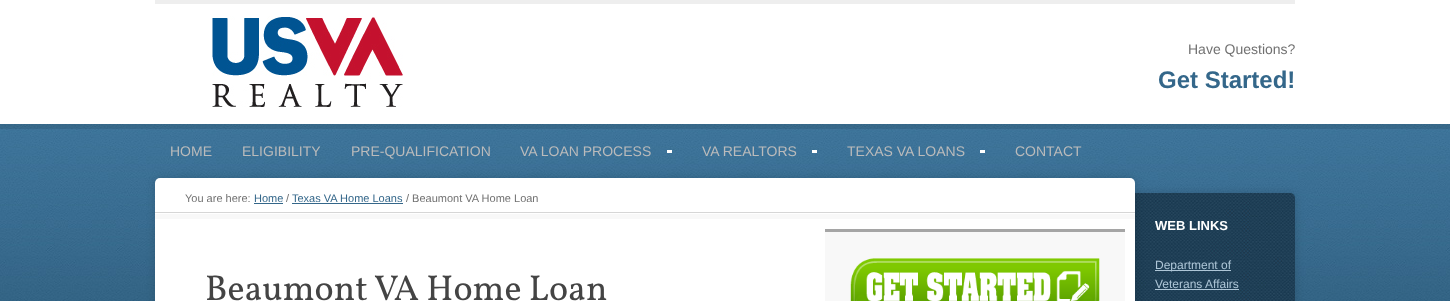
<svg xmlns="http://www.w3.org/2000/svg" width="1450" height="301">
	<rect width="100%" height="100%" fill="#FFFFFF" />
	<rect x="155" y="0" width="1140" height="4" fill="#EEEEEE" />
	<image x="212" y="16" width="191" height="91" href="assets/img1.png" />
	<text x="1188" y="54" font-family="Liberation Sans" font-size="14" fill="#717171">Have Questions?</text>
	<text x="1158" y="88" font-family="Liberation Sans" font-size="24" font-weight="700" fill="#34678A">Get Started!</text>
	<image x="0" y="124" width="1450" height="177" href="assets/img2.png" />
	<g font-family="Liberation Sans" font-size="14" fill="#BBBBBB">
		<text x="170" y="156">HOME</text>
		<text x="242" y="156">ELIGIBILITY</text>
		<text x="351" y="156">PRE-QUALIFICATION</text>
		<text x="520" y="156">VA LOAN PROCESS</text>
	</g>
	<rect x="667" y="150" width="5" height="3" fill="#FFFFFF" />
	<text x="702" y="156" font-family="Liberation Sans" font-size="14" fill="#BBBBBB">VA REALTORS</text>
	<rect x="812" y="150" width="5" height="3" fill="#FFFFFF" />
	<text x="847" y="156" font-family="Liberation Sans" font-size="14" fill="#BBBBBB">TEXAS VA LOANS</text>
	<rect x="980" y="150" width="5" height="3" fill="#FFFFFF" />
	<text x="1015" y="156" font-family="Liberation Sans" font-size="14" fill="#BBBBBB">CONTACT</text>
	<rect x="1130" y="193" width="165" height="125" rx="5" fill="#000000" fill-opacity="0.15" filter="blur(4px)" />
	<image x="1135" y="193" width="160" height="108" href="assets/img5.png" />
	<rect x="155" y="178" width="980" height="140" rx="5" fill="#000000" fill-opacity="0.15" filter="blur(4px)" />
	<rect x="155" y="178" width="980" height="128" rx="5" fill="#FFFFFF" />
	<image x="155" y="212" width="980" height="7" href="assets/img3.png" />
	<text x="185" y="202" font-family="Liberation Sans" font-size="11" fill="#717171">You are here:</text>
	<text x="254" y="202" font-family="Liberation Sans" font-size="11" fill="#34678A">Home</text>
	<rect x="254" y="203" width="29" height="1" fill="#34678A" />
	<text x="286" y="202" font-family="Liberation Sans" font-size="11" fill="#717171">/</text>
	<text x="292" y="202" font-family="Liberation Sans" font-size="11" fill="#34678A">Texas VA Home Loans</text>
	<rect x="292" y="203" width="111" height="1" fill="#34678A" />
	<text x="406" y="202" font-family="Liberation Sans" font-size="11" fill="#717171">/ Beaumont VA Home Loan</text>
	<text x="205" y="300" font-family="Vollkorn" font-size="36" fill="#444444">Beaumont VA Home Loan</text>
	<rect x="825" y="232" width="300" height="69" fill="#F8F8F8" />
	<rect x="825" y="229" width="300" height="3" fill="#A5A5A5" />
	<image x="850" y="258" width="250" height="43" href="assets/img4.png" />
	<text x="1155" y="230" font-family="Liberation Sans" font-size="13" font-weight="700" fill="#FFFFFF">WEB LINKS</text>
	<rect x="1155" y="270" width="76" height="1" fill="#AEC6D7" />
	<g font-family="Liberation Sans" font-size="12" fill="#AEC6D7">
		<text x="1155" y="269">Department of</text>
		<text x="1155" y="288">Veterans Affairs</text>
	</g>
	<rect x="1155" y="289" width="84" height="1" fill="#AEC6D7" />
</svg>
